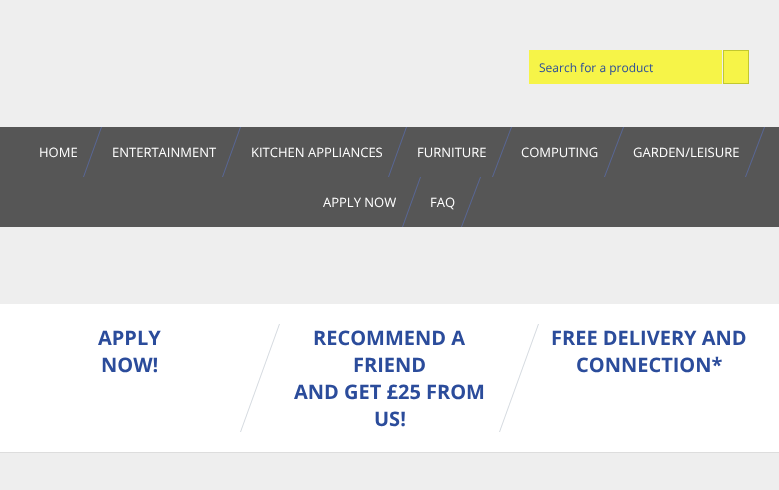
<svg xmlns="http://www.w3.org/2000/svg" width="779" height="490">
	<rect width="100%" height="100%" fill="#EEEEEE" />
	<rect x="529" y="50" width="193" height="34" fill="#F6F448" />
	<text x="539" y="72" font-family="Open Sans" font-size="12" fill="#2B4C9B">Search for a product</text>
	<rect x="723.5" y="50.5" width="25" height="33" fill="#F6F448" stroke="#C2C82E" />
	<rect x="0" y="127" width="779" height="100" fill="#565656" />
	<path d="M101 127H102L84 177H83Z" fill="#596796" />
	<text x="39" y="157" font-family="Open Sans" font-size="13" fill="#FFFFFF">HOME</text>
	<path d="M240 127H241L223 177H222Z" fill="#596796" />
	<text x="112" y="157" font-family="Open Sans" font-size="13" fill="#FFFFFF">ENTERTAINMENT</text>
	<path d="M406 127H407L389 177H388Z" fill="#596796" />
	<text x="251" y="157" font-family="Open Sans" font-size="13" fill="#FFFFFF">KITCHEN APPLIANCES</text>
	<path d="M511 127H512L493 177H492Z" fill="#596796" />
	<text x="417" y="157" font-family="Open Sans" font-size="13" fill="#FFFFFF">FURNITURE</text>
	<path d="M623 127H624L605 177H604Z" fill="#596796" />
	<text x="521" y="157" font-family="Open Sans" font-size="13" fill="#FFFFFF">COMPUTING</text>
	<path d="M764 127H765L746 177H745Z" fill="#596796" />
	<text x="633" y="157" font-family="Open Sans" font-size="13" fill="#FFFFFF">GARDEN/LEISURE</text>
	<path d="M420 177H421L403 227H402Z" fill="#596796" />
	<text x="323" y="207" font-family="Open Sans" font-size="13" fill="#FFFFFF">APPLY NOW</text>
	<path d="M480 177H481L462 227H461Z" fill="#596796" />
	<text x="430" y="207" font-family="Open Sans" font-size="13" fill="#FFFFFF">FAQ</text>
	<rect x="0" y="304" width="779" height="148" fill="#FFFFFF" />
	<rect x="0" y="452" width="779" height="1" fill="#DDDDDD" />
	<g font-family="Open Sans" font-size="20" font-weight="700" fill="#2B4C9B">
		<text x="98" y="345">APPLY</text>
		<text x="101" y="372">NOW!</text>
	</g>
	<path d="M538 324H539L500 432H499Z" fill="#D5DAE0" />
	<path d="M279 324H280L241 432H240Z" fill="#D5DAE0" />
	<g font-family="Open Sans" font-size="20" font-weight="700" fill="#2B4C9B">
		<text x="313" y="345">RECOMMEND A</text>
		<text x="353" y="372">FRIEND</text>
		<text x="294" y="399">AND GET £25 FROM</text>
		<text x="374" y="426">US!</text>
		<text x="551" y="345">FREE DELIVERY AND</text>
		<text x="576" y="372">CONNECTION*</text>
	</g>
</svg>
